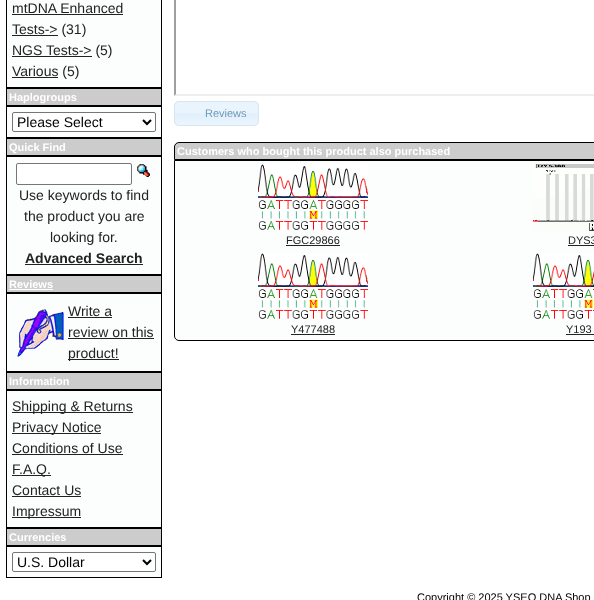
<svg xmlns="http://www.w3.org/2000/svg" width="594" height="600">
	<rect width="100%" height="100%" fill="#FFFFFF" />
	<rect x="6.5" y="-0.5" width="155" height="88" fill="#FCFDFD" stroke="#000000" />
	<text x="12" y="13" font-family="Liberation Sans" font-size="14" fill="#222222">mtDNA Enhanced</text>
	<rect x="12" y="14" width="111" height="1" fill="#222222" />
	<rect x="12" y="35" width="46" height="1" fill="#222222" />
	<text x="12" y="34" font-family="Liberation Sans" font-size="14" fill="#222222">Tests-&gt; (31)</text>
	<rect x="12" y="56" width="80" height="1" fill="#222222" />
	<text x="12" y="55" font-family="Liberation Sans" font-size="14" fill="#222222">NGS Tests-&gt; (5)</text>
	<rect x="12" y="77" width="46" height="1" fill="#222222" />
	<text x="12" y="76" font-family="Liberation Sans" font-size="14" fill="#222222">Various (5)</text>
	<rect x="6.5" y="88.5" width="155" height="17" fill="#CCCCCC" stroke="#000000" />
	<text x="9" y="101" font-family="Liberation Sans" font-size="11" font-weight="700" fill="#FFFFFF">Haplogroups</text>
	<rect x="6.5" y="106.5" width="155" height="31" fill="#FCFDFD" stroke="#000000" />
	<rect x="12.5" y="112.5" width="143" height="19" rx="1.5" fill="#FFFFFF" stroke="#767676" />
	<path d="M143 120L147 124L151 120" fill="none" stroke="#000000" stroke-width="2" />
	<text x="17" y="127" font-family="Liberation Sans" font-size="14" fill="#000000">Please Select</text>
	<rect x="6.5" y="138.5" width="155" height="17" fill="#CCCCCC" stroke="#000000" />
	<text x="9" y="151" font-family="Liberation Sans" font-size="11" font-weight="700" fill="#FFFFFF">Quick Find</text>
	<rect x="6.5" y="156.5" width="155" height="118" fill="#FCFDFD" stroke="#000000" />
	<rect x="16.5" y="163.5" width="115" height="21" rx="1.5" fill="#FFFFFF" stroke="#767676" />
	<image x="137" y="164" width="13" height="13" href="assets/img1.png" />
	<g font-family="Liberation Sans" font-size="14" fill="#222222">
		<text x="19" y="200">Use keywords to find</text>
		<text x="24" y="221">the product you are</text>
		<text x="50" y="242">looking for.</text>
	</g>
	<text x="25" y="263" font-family="Liberation Sans" font-size="14" font-weight="700" fill="#222222">Advanced Search</text>
	<rect x="25" y="264" width="118" height="1" fill="#222222" />
	<rect x="6.5" y="275.5" width="155" height="17" fill="#CCCCCC" stroke="#000000" />
	<text x="9" y="288" font-family="Liberation Sans" font-size="11" font-weight="700" fill="#FFFFFF">Reviews</text>
	<rect x="9" y="289" width="44" height="1" fill="#FFFFFF" />
	<rect x="6.5" y="293.5" width="155" height="78" fill="#FCFDFD" stroke="#000000" />
	<image x="17" y="309" width="47" height="48" href="assets/img2.png" />
	<text x="68" y="316" font-family="Liberation Sans" font-size="14" fill="#222222">Write a</text>
	<rect x="68" y="317" width="44" height="1" fill="#222222" />
	<text x="68" y="337" font-family="Liberation Sans" font-size="14" fill="#222222">review on this</text>
	<rect x="68" y="338" width="86" height="1" fill="#222222" />
	<rect x="68" y="359" width="51" height="1" fill="#222222" />
	<text x="68" y="358" font-family="Liberation Sans" font-size="14" fill="#222222">product!</text>
	<rect x="6.5" y="372.5" width="155" height="17" fill="#CCCCCC" stroke="#000000" />
	<text x="9" y="385" font-family="Liberation Sans" font-size="11" font-weight="700" fill="#FFFFFF">Information</text>
	<rect x="6.5" y="390.5" width="155" height="137" fill="#FCFDFD" stroke="#000000" />
	<rect x="12" y="412" width="121" height="1" fill="#222222" />
	<text x="12" y="411" font-family="Liberation Sans" font-size="14" fill="#222222">Shipping &amp; Returns</text>
	<rect x="12" y="433" width="89" height="1" fill="#222222" />
	<g font-family="Liberation Sans" font-size="14" fill="#222222">
		<text x="12" y="432">Privacy Notice</text>
		<text x="12" y="453">Conditions of Use</text>
	</g>
	<rect x="12" y="454" width="111" height="1" fill="#222222" />
	<rect x="12" y="475" width="39" height="1" fill="#222222" />
	<g font-family="Liberation Sans" font-size="14" fill="#222222">
		<text x="12" y="474">F.A.Q.</text>
		<text x="12" y="495">Contact Us</text>
	</g>
	<rect x="12" y="496" width="69" height="1" fill="#222222" />
	<rect x="12" y="517" width="69" height="1" fill="#222222" />
	<text x="12" y="516" font-family="Liberation Sans" font-size="14" fill="#222222">Impressum</text>
	<rect x="6.5" y="528.5" width="155" height="17" fill="#CCCCCC" stroke="#000000" />
	<text x="9" y="541" font-family="Liberation Sans" font-size="11" font-weight="700" fill="#FFFFFF">Currencies</text>
	<rect x="6.5" y="546.5" width="155" height="31" fill="#FCFDFD" stroke="#000000" />
	<rect x="12.5" y="552.5" width="143" height="19" rx="1.5" fill="#FFFFFF" stroke="#767676" />
	<path d="M143 560L147 564L151 560" fill="none" stroke="#000000" stroke-width="2" />
	<text x="17" y="567" font-family="Liberation Sans" font-size="14" fill="#000000">U.S. Dollar</text>
	<path d="M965 96H174L176 94H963Z" fill="#EEEEEE" />
	<path d="M174 96V-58L176-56V94Z" fill="#9F9F9F" />
	<rect x="174" y="101" width="85" height="25" rx="5" fill="#E9F4FD" />
	<image x="174" y="113" width="85" height="12" href="assets/img3.png" />
	<rect x="174.5" y="101.5" width="84" height="24" rx="4.5" fill="none" stroke="#D6E6F2" />
	<text x="205" y="117" font-family="Liberation Sans" font-size="11" fill="#6D9ABB">Reviews</text>
	<path d="M179 142.5H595C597.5 142.5 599.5 144.5 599.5 147V159.5H174.5V147C174.5 144.5 176.5 142.5 179 142.5Z" fill="#CCCCCC" stroke="#000000" />
	<text x="177" y="155" font-family="Liberation Sans" font-size="11" font-weight="700" fill="#FFFFFF">Customers who bought this product also purchased</text>
	<path d="M174.5 160.5H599.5V336C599.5 338.5 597.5 340.5 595 340.5H179C176.5 340.5 174.5 338.5 174.5 336Z" fill="#FCFDFD" stroke="#000000" />
	<image x="258" y="164" width="110" height="66" href="assets/img4.png" />
	<text x="286" y="244" font-family="Liberation Sans" font-size="11" fill="#222222">FGC29866</text>
	<rect x="286" y="245" width="54" height="1" fill="#222222" />
	<image x="533" y="164" width="61" height="67" href="assets/img5.png" />
	<text x="568" y="244" font-family="Liberation Sans" font-size="11" fill="#222222">DYS3</text>
	<rect x="568" y="245" width="26" height="1" fill="#222222" />
	<image x="258" y="253" width="110" height="66" href="assets/img4.png" />
	<text x="291" y="333" font-family="Liberation Sans" font-size="11" fill="#222222">Y477488</text>
	<rect x="291" y="334" width="44" height="1" fill="#222222" />
	<image x="533" y="253" width="61" height="66" href="assets/img6.png" />
	<text x="566" y="333" font-family="Liberation Sans" font-size="11" fill="#222222">Y193</text>
	<rect x="566" y="334" width="28" height="1" fill="#222222" />
	<text x="417" y="601" font-family="Liberation Sans" font-size="11" fill="#000000">Copyright © 2025 YSEQ DNA Shop</text>
</svg>
